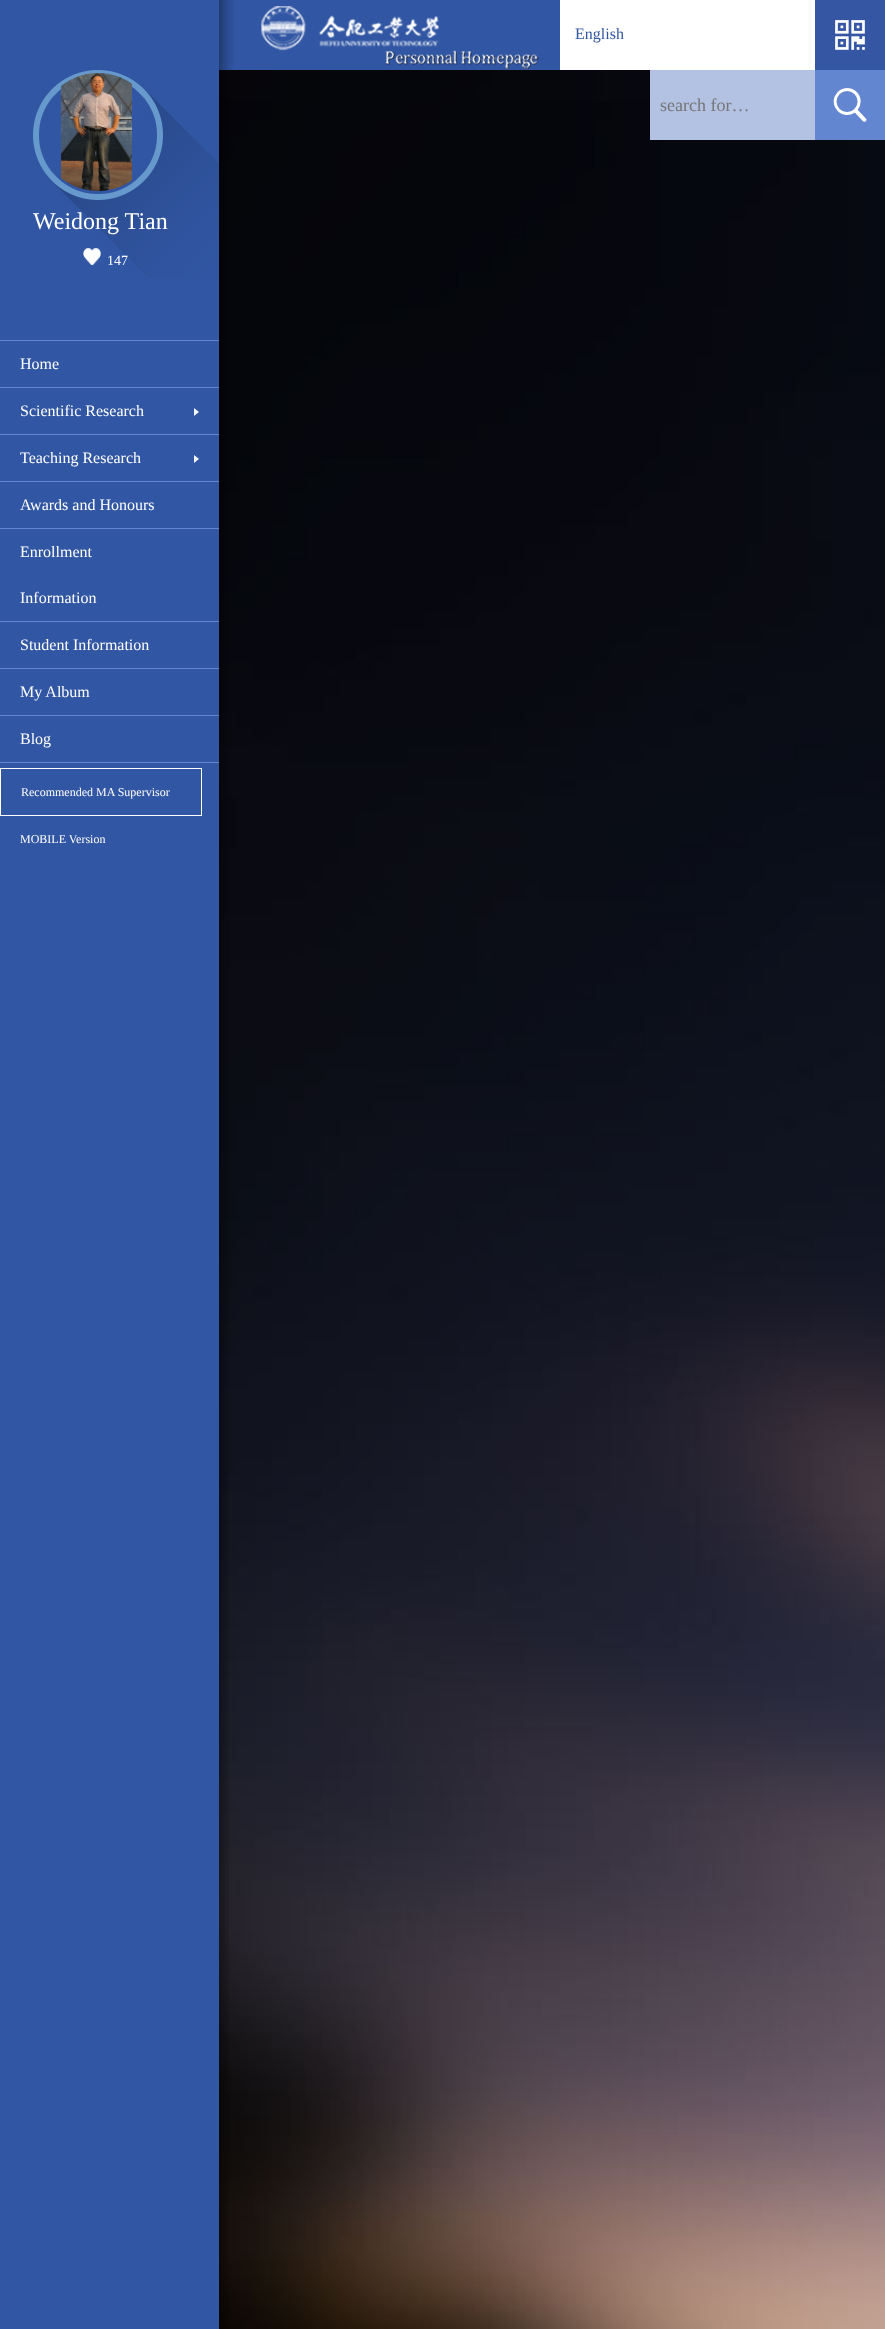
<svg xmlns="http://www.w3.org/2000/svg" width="885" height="2329">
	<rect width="100%" height="100%" fill="#FFFFFF" />
	<image x="219" y="70" width="666" height="2259" href="assets/img1.png" />
	<rect x="0" y="0" width="560" height="70" fill="#3156A3" />
	<image x="219" y="0" width="15" height="70" href="assets/img2.png" />
	<image x="261" y="6" width="278" height="63" href="assets/img3.png" />
	<text x="575" y="39" font-family="Liberation Serif" font-size="16" fill="#3156A3">English</text>
	<image x="815" y="0" width="70" height="70" href="assets/img4.png" />
	<rect x="650" y="70" width="165" height="70" fill="#B3C2E3" />
	<text x="660" y="111" font-family="Liberation Serif" font-size="18" fill="#757575">search for…</text>
	<image x="815" y="70" width="70" height="70" href="assets/img5.png" />
	<image x="0" y="70" width="229" height="2259" href="assets/img6.png" />
	<image x="33" y="70" width="186" height="209" href="assets/img7.png" />
	<image x="61" y="73" width="71" height="118" href="assets/img8.png" />
	<text x="33" y="229" font-family="Liberation Serif" font-size="24" fill="#FFFFFF">Weidong Tian</text>
	<image x="83" y="248" width="18" height="17" href="assets/img9.png" />
	<text x="107" y="265" font-family="Liberation Serif" font-size="14" fill="#FFFFFF">147</text>
	<rect x="0" y="340" width="219" height="1" fill="#6386D1" />
	<rect x="0" y="387" width="219" height="1" fill="#6386D1" />
	<text x="20" y="369" font-family="Liberation Serif" font-size="16" fill="#FFFFFF">Home</text>
	<rect x="0" y="434" width="219" height="1" fill="#6386D1" />
	<text x="20" y="416" font-family="Liberation Serif" font-size="16" fill="#FFFFFF">Scientific Research</text>
	<image x="194" y="408" width="5" height="8" href="assets/img10.png" />
	<rect x="0" y="481" width="219" height="1" fill="#6386D1" />
	<text x="20" y="463" font-family="Liberation Serif" font-size="16" fill="#FFFFFF">Teaching Research</text>
	<image x="194" y="455" width="5" height="8" href="assets/img10.png" />
	<rect x="0" y="528" width="219" height="1" fill="#6386D1" />
	<text x="20" y="510" font-family="Liberation Serif" font-size="16" fill="#FFFFFF">Awards and Honours</text>
	<rect x="0" y="621" width="219" height="1" fill="#6386D1" />
	<g font-family="Liberation Serif" font-size="16" fill="#FFFFFF">
		<text x="20" y="557">Enrollment</text>
		<text x="20" y="603">Information</text>
	</g>
	<rect x="0" y="668" width="219" height="1" fill="#6386D1" />
	<text x="20" y="650" font-family="Liberation Serif" font-size="16" fill="#FFFFFF">Student Information</text>
	<rect x="0" y="715" width="219" height="1" fill="#6386D1" />
	<text x="20" y="697" font-family="Liberation Serif" font-size="16" fill="#FFFFFF">My Album</text>
	<rect x="0" y="762" width="219" height="1" fill="#6386D1" />
	<text x="20" y="744" font-family="Liberation Serif" font-size="16" fill="#FFFFFF">Blog</text>
	<rect x="0.5" y="768.5" width="201" height="47" fill="none" stroke="#FFFFFF" />
	<g font-family="Liberation Serif" font-size="12" fill="#FFFFFF">
		<text x="21" y="796">Recommended MA Supervisor</text>
		<text x="20" y="843">MOBILE Version</text>
	</g>
</svg>
